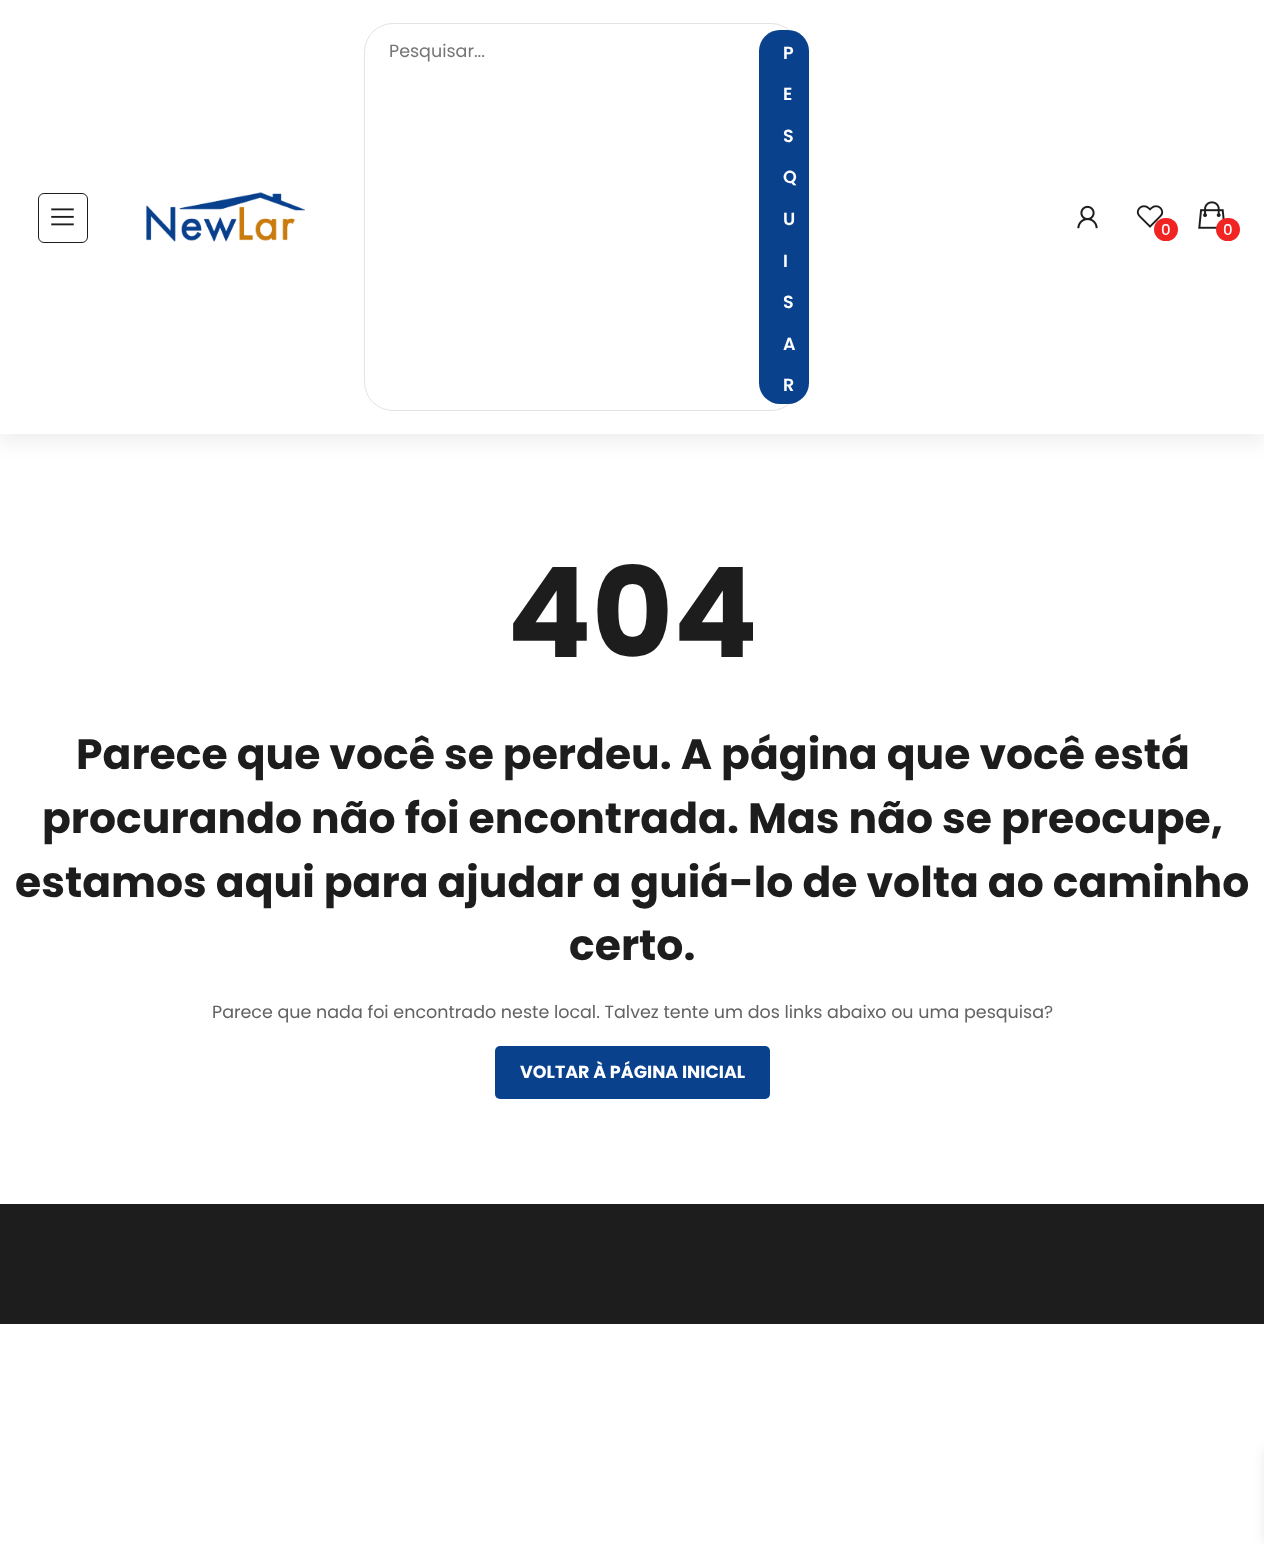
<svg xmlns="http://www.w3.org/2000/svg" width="1264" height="1544">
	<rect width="100%" height="100%" fill="#FFFFFF" />
	<rect x="-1" y="8" width="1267" height="436" fill="#000000" fill-opacity="0.06" filter="blur(9px)" />
	<rect x="0" y="0" width="1264" height="434" fill="#FFFFFF" />
	<rect x="38.5" y="193.5" width="49" height="49" rx="5.5" fill="none" stroke="#1D1D1D" />
	<image x="51" y="208" width="23" height="18" href="assets/img1.png" />
	<image x="146" y="192" width="159" height="50" href="assets/img2.png" />
	<rect x="364.5" y="23.5" width="435" height="387" rx="28.5" fill="none" stroke="#E1E3E5" />
	<text x="389" y="57" font-family="Poppins" font-size="17.5" fill="#757575">Pesquisar...</text>
	<rect x="759" y="30" width="50" height="374" rx="21" fill="#09418D" />
	<g font-family="Poppins" font-size="17.5" font-weight="600" fill="#FFFFFF">
		<text x="783" y="59">P</text>
		<text x="783" y="100">E</text>
		<text x="783" y="142">S</text>
		<text x="783" y="183">Q</text>
		<text x="783" y="225">U</text>
		<text x="783" y="267">I</text>
		<text x="783" y="308">S</text>
		<text x="783" y="350">A</text>
		<text x="783" y="391">R</text>
	</g>
	<image x="1077" y="205" width="21" height="24" href="assets/img3.png" />
	<image x="1136" y="205" width="28" height="23" href="assets/img4.png" />
	<rect x="1154" y="218" width="24" height="23" rx="11.5" fill="#F12424" />
	<text x="1161" y="235" font-family="Poppins" font-size="15" font-weight="500" fill="#FFFFFF">0</text>
	<image x="1198" y="201" width="27" height="28" href="assets/img5.png" />
	<rect x="1216" y="218" width="24" height="23" rx="11.5" fill="#F12424" />
	<text x="1223" y="235" font-family="Poppins" font-size="15" font-weight="500" fill="#FFFFFF">0</text>
	<text x="507" y="657" font-family="Poppins" font-size="125" font-weight="700" fill="#1D1D1D">404</text>
	<g font-family="Poppins" font-size="42.5" font-weight="700" fill="#1D1D1D">
		<text x="76" y="769">Parece que você se perdeu. A página que você está</text>
		<text x="42" y="833">procurando não foi encontrada. Mas não se preocupe,</text>
		<text x="15" y="897">estamos aqui para ajudar a guiá-lo de volta ao caminho</text>
		<text x="569" y="960">certo.</text>
	</g>
	<text x="212" y="1018" font-family="Poppins" font-size="17.5" fill="#626262">Parece que nada foi encontrado neste local. Talvez tente um dos links abaixo ou uma pesquisa?</text>
	<rect x="495" y="1046" width="275" height="53" rx="5" fill="#09418D" />
	<text x="520" y="1078" font-family="Poppins" font-size="17.5" font-weight="700" fill="#FFFFFF">VOLTAR À PÁGINA INICIAL</text>
	<rect x="0" y="1204" width="1264" height="120" fill="#1D1D1D" />
	<rect x="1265" y="1450" width="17" height="94" fill="#000000" fill-opacity="0.1" filter="blur(6px)" />
</svg>
